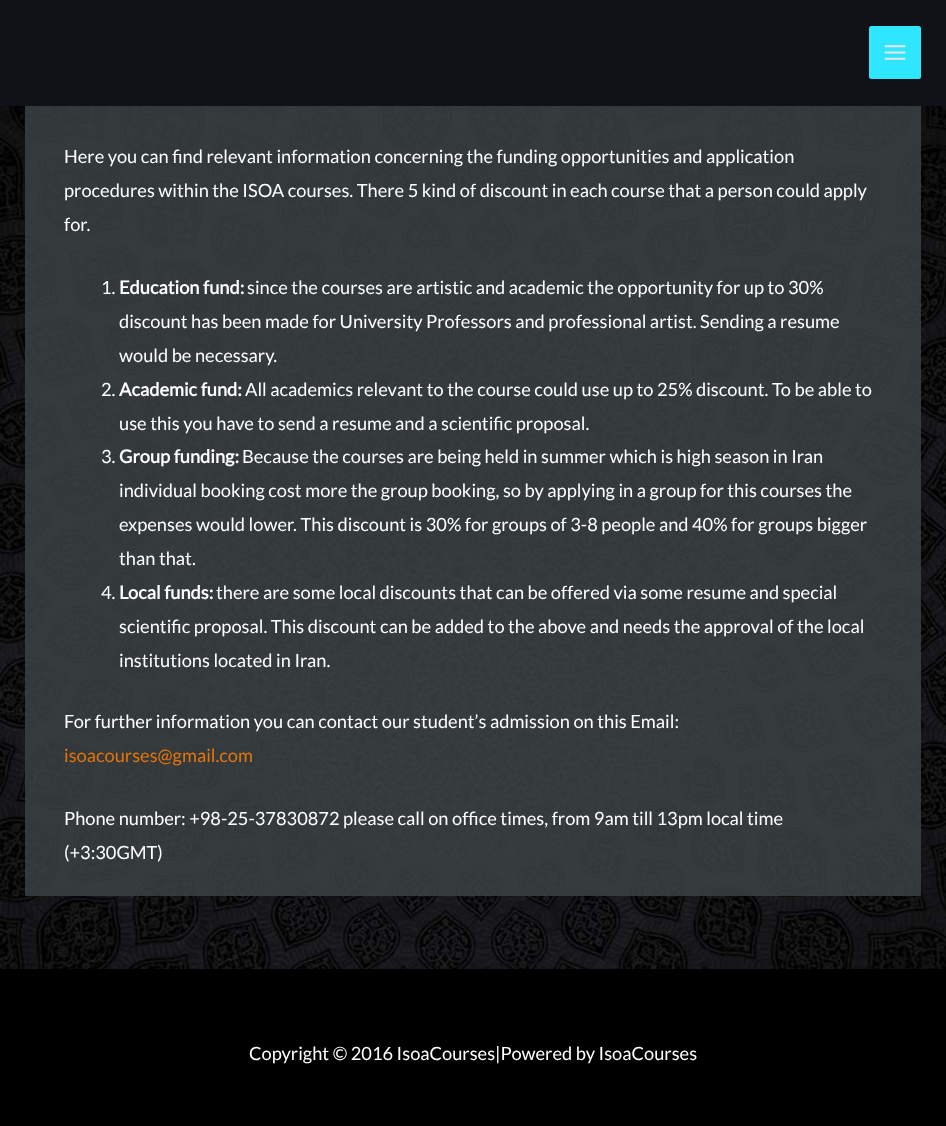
<svg xmlns="http://www.w3.org/2000/svg" width="946" height="1126">
	<rect width="100%" height="100%" fill="#FFFFFF" />
	<image x="0" y="106" width="946" height="863" href="assets/img1.png" />
	<rect x="0" y="0" width="946" height="106" fill="#101218" />
	<rect x="869" y="26" width="52" height="53" rx="2.5" fill="#2FE6FF" />
	<image x="884" y="45" width="22" height="15" href="assets/img2.png" />
	<rect x="25" y="106" width="896" height="790" fill="#3C4345" fill-opacity="0.83" />
	<g font-family="Lato" font-size="18.25" fill="#FFFFFF">
		<text x="64" y="163">Here you can find relevant information concerning the funding opportunities and application</text>
		<text x="64" y="197">procedures within the ISOA courses. There 5 kind of discount in each course that a person could apply</text>
		<text x="64" y="231">for.</text>
		<text x="101" y="294">1.</text>
	</g>
	<text x="119" y="294" font-family="Lato" font-size="18.25" font-weight="700" fill="#FFFFFF">Education fund:</text>
	<g font-family="Lato" font-size="18.25" fill="#FFFFFF">
		<text x="247" y="294">since the courses are artistic and academic the opportunity for up to 30%</text>
		<text x="119" y="328">discount has been made for University Professors and professional artist. Sending a resume</text>
		<text x="119" y="362">would be necessary.</text>
		<text x="101" y="396">2.</text>
	</g>
	<text x="119" y="396" font-family="Lato" font-size="18.25" font-weight="700" fill="#FFFFFF">Academic fund:</text>
	<g font-family="Lato" font-size="18.25" fill="#FFFFFF">
		<text x="245" y="396">All academics relevant to the course could use up to 25% discount. To be able to</text>
		<text x="119" y="430">use this you have to send a resume and a scientific proposal.</text>
		<text x="101" y="463">3.</text>
	</g>
	<text x="119" y="463" font-family="Lato" font-size="18.25" font-weight="700" fill="#FFFFFF">Group funding:</text>
	<g font-family="Lato" font-size="18.25" fill="#FFFFFF">
		<text x="242" y="463">Because the courses are being held in summer which is high season in Iran</text>
		<text x="119" y="497">individual booking cost more the group booking, so by applying in a group for this courses the</text>
		<text x="119" y="531">expenses would lower. This discount is 30% for groups of 3-8 people and 40% for groups bigger</text>
		<text x="119" y="565">than that.</text>
		<text x="101" y="599">4.</text>
	</g>
	<text x="119" y="599" font-family="Lato" font-size="18.25" font-weight="700" fill="#FFFFFF">Local funds:</text>
	<g font-family="Lato" font-size="18.25" fill="#FFFFFF">
		<text x="216" y="599">there are some local discounts that can be offered via some resume and special</text>
		<text x="119" y="633">scientific proposal. This discount can be added to the above and needs the approval of the local</text>
		<text x="119" y="667">institutions located in Iran.</text>
		<text x="64" y="728">For further information you can contact our student’s admission on this Email:</text>
	</g>
	<text x="64" y="762" font-family="Lato" font-size="18.25" fill="#E87409">isoacourses@gmail.com</text>
	<g font-family="Lato" font-size="18.25" fill="#FFFFFF">
		<text x="64" y="825">Phone number: +98-25-37830872 please call on office times, from 9am till 13pm local time</text>
		<text x="64" y="859">(+3:30GMT)</text>
	</g>
	<rect x="0" y="969" width="946" height="157" fill="#000000" />
	<text x="249" y="1060" font-family="Lato" font-size="18.25" fill="#FFFFFF">Copyright © 2016 IsoaCourses|Powered by IsoaCourses</text>
</svg>
